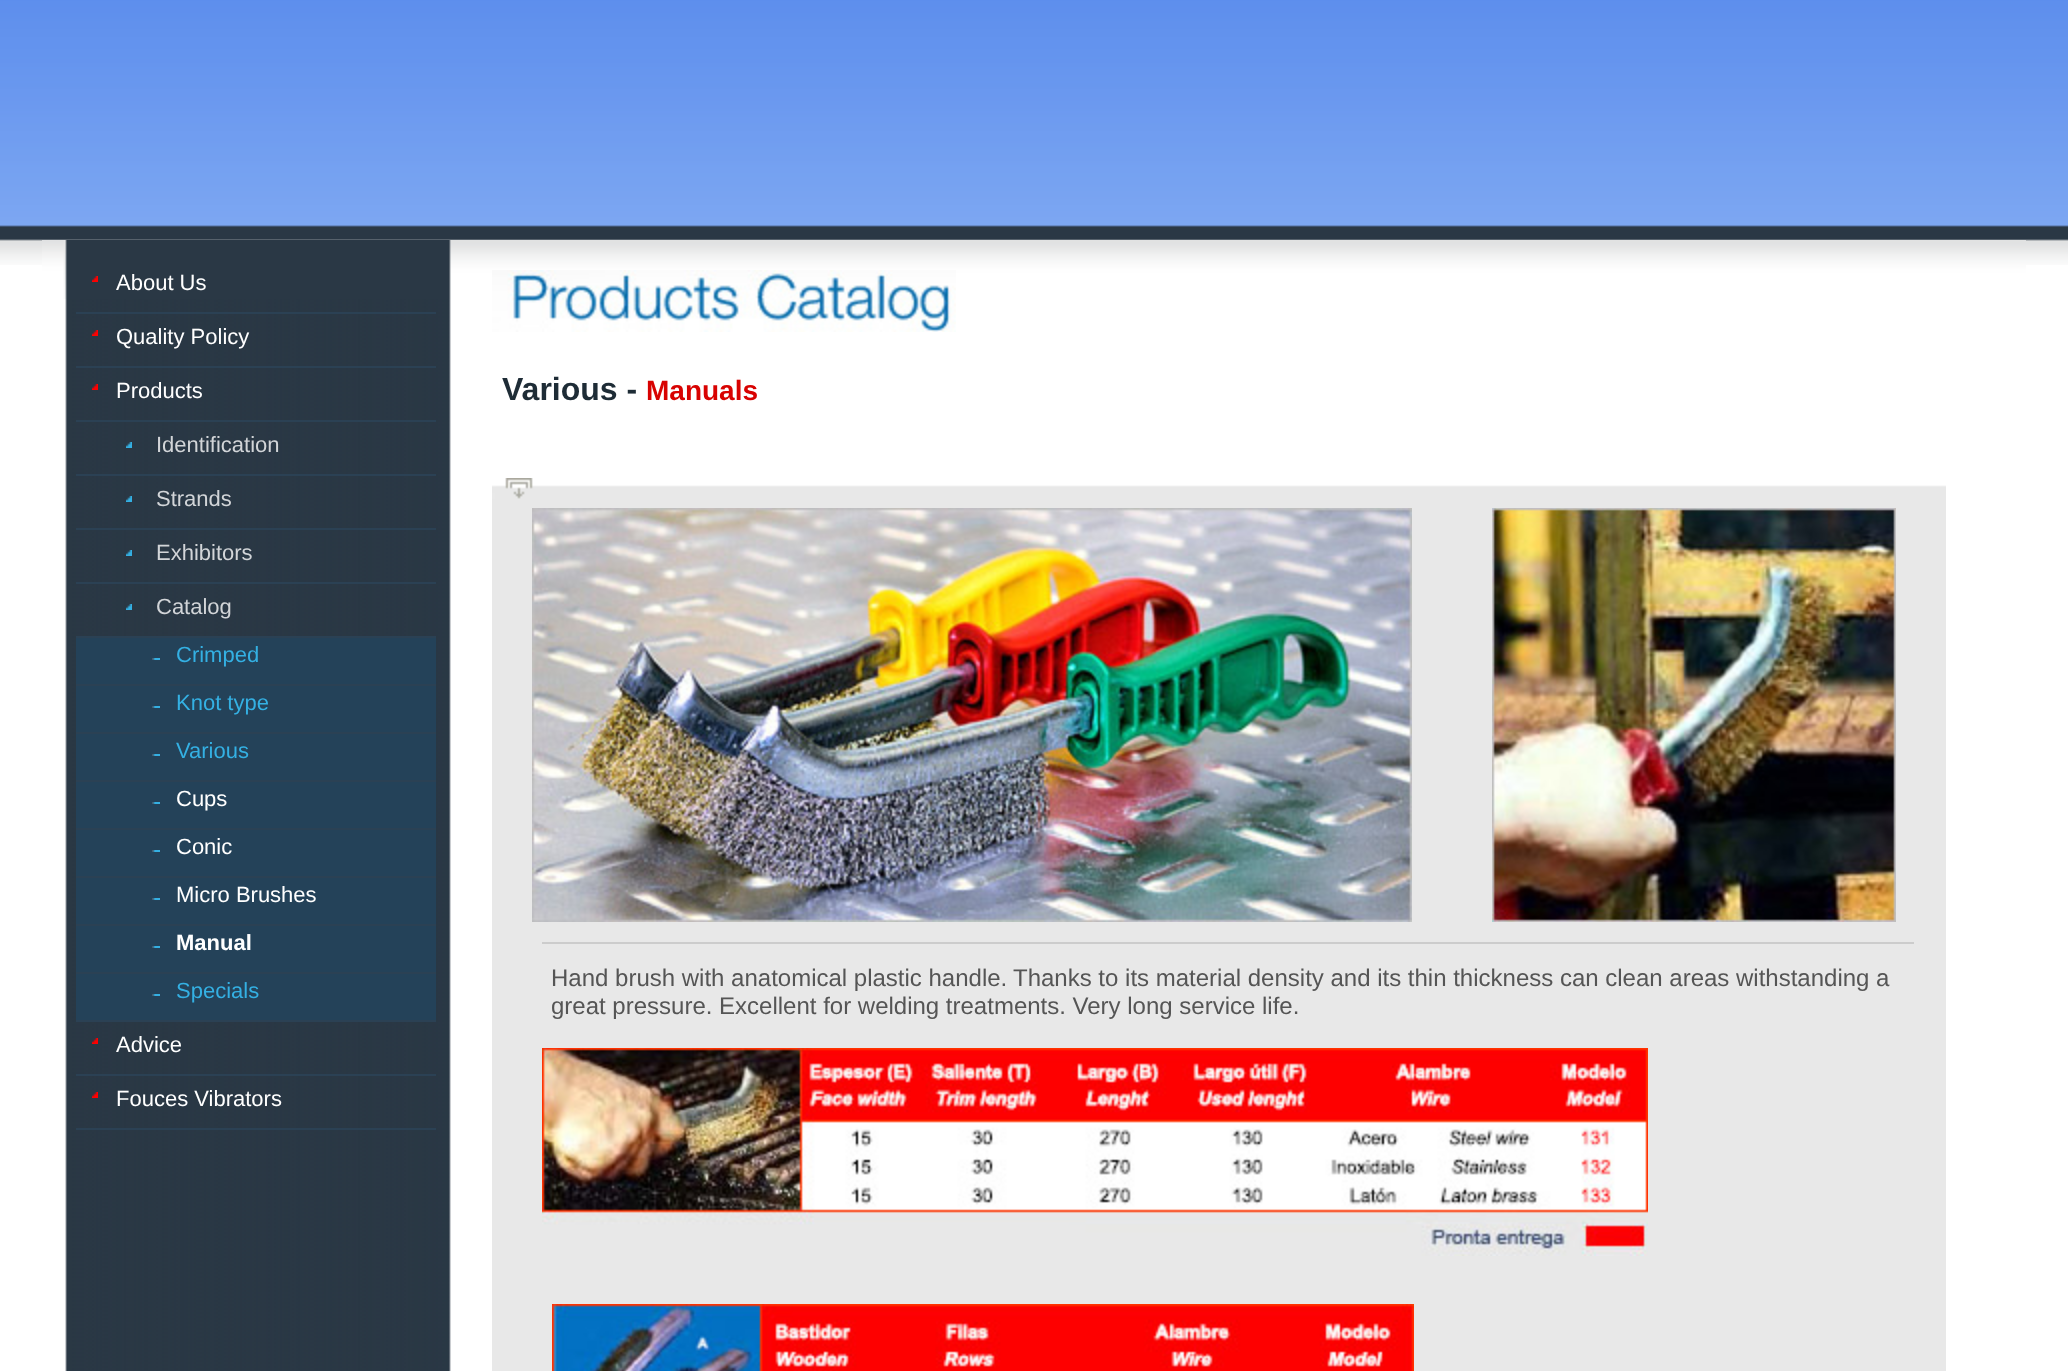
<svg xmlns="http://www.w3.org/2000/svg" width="2068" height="1371">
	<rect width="100%" height="100%" fill="#FFFFFF" />
	<image x="0" y="0" width="2068" height="265" href="assets/img1.png" />
	<image x="42" y="299" width="1984" height="1072" href="assets/img2.png" />
	<image x="42" y="240" width="1984" height="59" href="assets/img3.png" />
	<image x="92" y="276" width="6" height="6" href="assets/img4.png" />
	<rect x="76" y="312" width="360" height="2" fill="#2B4154" />
	<text x="116" y="290" font-family="Liberation Sans" font-size="22" fill="#FFFFFF">About Us</text>
	<image x="92" y="330" width="6" height="6" href="assets/img5.png" />
	<rect x="76" y="366" width="360" height="2" fill="#2B4154" />
	<text x="116" y="344" font-family="Liberation Sans" font-size="22" fill="#FFFFFF">Quality Policy</text>
	<image x="92" y="384" width="6" height="6" href="assets/img6.png" />
	<rect x="76" y="420" width="360" height="2" fill="#2B4154" />
	<text x="116" y="398" font-family="Liberation Sans" font-size="22" fill="#FFFFFF">Products</text>
	<image x="126" y="442" width="6" height="6" href="assets/img7.png" />
	<rect x="76" y="474" width="360" height="2" fill="#2B4154" />
	<text x="156" y="452" font-family="Liberation Sans" font-size="22" fill="#D2D5D8">Identification</text>
	<image x="126" y="496" width="6" height="6" href="assets/img8.png" />
	<rect x="76" y="528" width="360" height="2" fill="#2B4154" />
	<text x="156" y="506" font-family="Liberation Sans" font-size="22" fill="#D2D5D8">Strands</text>
	<image x="126" y="550" width="6" height="6" href="assets/img7.png" />
	<rect x="76" y="582" width="360" height="2" fill="#2B4154" />
	<text x="156" y="560" font-family="Liberation Sans" font-size="22" fill="#D2D5D8">Exhibitors</text>
	<image x="126" y="604" width="6" height="6" href="assets/img8.png" />
	<rect x="76" y="636" width="360" height="2" fill="#2B4154" />
	<text x="156" y="614" font-family="Liberation Sans" font-size="22" fill="#D2D5D8">Catalog</text>
	<rect x="76" y="638" width="360" height="46" fill="#244259" />
	<image x="152" y="658" width="8" height="2" href="assets/img9.png" />
	<rect x="76" y="684" width="360" height="2" fill="#2B4154" />
	<text x="176" y="662" font-family="Liberation Sans" font-size="22" fill="#34B0E3">Crimped</text>
	<rect x="76" y="686" width="360" height="46" fill="#244259" />
	<image x="152" y="706" width="8" height="2" href="assets/img9.png" />
	<rect x="76" y="732" width="360" height="2" fill="#2B4154" />
	<text x="176" y="710" font-family="Liberation Sans" font-size="22" fill="#34B0E3">Knot type</text>
	<rect x="76" y="734" width="360" height="46" fill="#244259" />
	<image x="152" y="754" width="8" height="2" href="assets/img9.png" />
	<rect x="76" y="780" width="360" height="2" fill="#2B4154" />
	<text x="176" y="758" font-family="Liberation Sans" font-size="22" fill="#34B0E3">Various</text>
	<rect x="76" y="782" width="360" height="46" fill="#244259" />
	<image x="152" y="802" width="8" height="2" href="assets/img9.png" />
	<rect x="76" y="828" width="360" height="2" fill="#2B4154" />
	<text x="176" y="806" font-family="Liberation Sans" font-size="22" fill="#FFFFFF">Cups</text>
	<rect x="76" y="830" width="360" height="46" fill="#244259" />
	<image x="152" y="850" width="8" height="2" href="assets/img9.png" />
	<rect x="76" y="876" width="360" height="2" fill="#2B4154" />
	<text x="176" y="854" font-family="Liberation Sans" font-size="22" fill="#FFFFFF">Conic</text>
	<rect x="76" y="878" width="360" height="46" fill="#244259" />
	<image x="152" y="898" width="8" height="2" href="assets/img9.png" />
	<rect x="76" y="924" width="360" height="2" fill="#2B4154" />
	<text x="176" y="902" font-family="Liberation Sans" font-size="22" fill="#FFFFFF">Micro Brushes</text>
	<rect x="76" y="926" width="360" height="46" fill="#244259" />
	<image x="152" y="946" width="8" height="2" href="assets/img9.png" />
	<rect x="76" y="972" width="360" height="2" fill="#2B4154" />
	<text x="176" y="950" font-family="Liberation Sans" font-size="22" font-weight="700" fill="#FFFFFF">Manual</text>
	<rect x="76" y="974" width="360" height="46" fill="#244259" />
	<image x="152" y="994" width="8" height="2" href="assets/img9.png" />
	<rect x="76" y="1020" width="360" height="2" fill="#2B4154" />
	<text x="176" y="998" font-family="Liberation Sans" font-size="22" fill="#34B0E3">Specials</text>
	<image x="92" y="1038" width="6" height="6" href="assets/img5.png" />
	<rect x="76" y="1074" width="360" height="2" fill="#2B4154" />
	<text x="116" y="1052" font-family="Liberation Sans" font-size="22" fill="#FFFFFF">Advice</text>
	<image x="92" y="1092" width="6" height="6" href="assets/img6.png" />
	<rect x="76" y="1128" width="360" height="2" fill="#2B4154" />
	<text x="116" y="1106" font-family="Liberation Sans" font-size="22" fill="#FFFFFF">Fouces Vibrators</text>
	<image x="492" y="270" width="464" height="62" href="assets/img10.png" />
	<text x="502" y="400" font-family="Liberation Sans" font-size="32" font-weight="700" fill="#1E2C36">Various -</text>
	<text x="646" y="400" font-family="Liberation Sans" font-size="28" font-weight="700" fill="#D80201">Manuals</text>
	<rect x="492" y="499" width="1454" height="872" fill="#E8E8E8" />
	<image x="492" y="478" width="1454" height="21" href="assets/img11.png" />
	<image x="532" y="508" width="880" height="414" href="assets/img12.png" />
	<image x="1492" y="508" width="404" height="414" href="assets/img13.png" />
	<rect x="542" y="942" width="1372" height="2" fill="#CCCCCC" />
	<g font-family="Liberation Sans" font-size="24" fill="#555555">
		<text x="551" y="986">Hand brush with anatomical plastic handle.</text>
		<text x="1013" y="986">Thanks to its material density and its thin thickness can clean areas withstanding a</text>
		<text x="551" y="1014">great pressure. Excellent for welding treatments. Very long service life.</text>
	</g>
	<image x="542" y="1048" width="1106" height="208" href="assets/img14.png" />
	<image x="552" y="1304" width="862" height="67" href="assets/img15.png" />
</svg>
